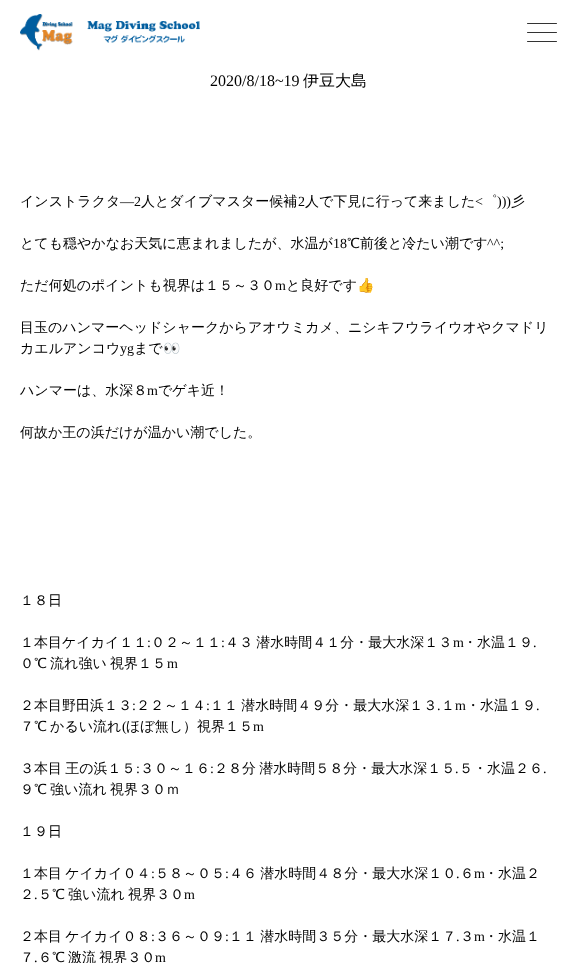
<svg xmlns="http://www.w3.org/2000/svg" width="577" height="963">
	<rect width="100%" height="100%" fill="#FFFFFF" />
	<image x="20" y="14" width="180" height="37" href="assets/img1.png" />
	<rect x="527" y="23" width="30" height="1" rx="0.5" fill="#333333" />
	<rect x="527" y="32" width="30" height="1" rx="0.5" fill="#333333" />
	<rect x="527" y="41" width="30" height="1" rx="0.5" fill="#333333" />
	<text x="210" y="86" font-family="Liberation Serif" font-size="16" fill="#000000">2020/8/18~19</text>
	<text x="303" y="86" font-family="WenQuanYi Zen Hei" font-size="16" font-weight="500" fill="#000000">伊豆大島</text>
	<text x="20" y="206" font-family="WenQuanYi Zen Hei" font-size="14" font-weight="500" fill="#000000">インストラクタ</text>
	<text x="120" y="206" font-family="Liberation Serif" font-size="14" fill="#000000">―2</text>
	<text x="141" y="206" font-family="WenQuanYi Zen Hei" font-size="14" font-weight="500" fill="#000000">人とダイブマスター候補</text>
	<text x="298" y="206" font-family="Liberation Serif" font-size="14" fill="#000000">2</text>
	<text x="305" y="206" font-family="WenQuanYi Zen Hei" font-size="14" font-weight="500" fill="#000000">人で下見に行って来ました</text>
	<text x="475" y="206" font-family="Liberation Serif" font-size="14" fill="#000000">&lt;</text>
	<text x="483" y="206" font-family="WenQuanYi Zen Hei" font-size="14" font-weight="500" fill="#000000">゜</text>
	<text x="497" y="206" font-family="Liberation Serif" font-size="14" fill="#000000">)))</text>
	<g font-family="WenQuanYi Zen Hei" font-size="14" font-weight="500" fill="#000000">
		<text x="511" y="206">彡</text>
		<text x="20" y="248">とても穏やかなお天気に恵まれましたが、水温が</text>
	</g>
	<text x="333" y="248" font-family="Liberation Serif" font-size="14" fill="#000000">18</text>
	<text x="347" y="248" font-family="WenQuanYi Zen Hei" font-size="14" font-weight="500" fill="#000000">℃前後と冷たい潮です</text>
	<text x="487" y="248" font-family="Liberation Serif" font-size="14" fill="#000000">^^;</text>
	<text x="20" y="290" font-family="WenQuanYi Zen Hei" font-size="14" font-weight="500" fill="#000000">ただ何処のポイントも視界は１５～３０</text>
	<text x="275" y="290" font-family="Liberation Serif" font-size="14" fill="#000000">m</text>
	<text x="286" y="290" font-family="WenQuanYi Zen Hei" font-size="14" font-weight="500" fill="#000000">と良好です</text>
	<text x="357" y="290" font-family="Noto Color Emoji" font-size="14" fill="#000000">👍</text>
	<g font-family="WenQuanYi Zen Hei" font-size="14" font-weight="500" fill="#000000">
		<text x="20" y="332">目玉のハンマーヘッドシャークからアオウミカメ、ニシキフウライウオやクマドリ</text>
		<text x="20" y="353">カエルアンコウ</text>
	</g>
	<text x="120" y="353" font-family="Liberation Serif" font-size="14" fill="#000000">yg</text>
	<text x="134" y="353" font-family="WenQuanYi Zen Hei" font-size="14" font-weight="500" fill="#000000">まで</text>
	<text x="163" y="353" font-family="Noto Color Emoji" font-size="14" fill="#000000">👀</text>
	<text x="20" y="395" font-family="WenQuanYi Zen Hei" font-size="14" font-weight="500" fill="#000000">ハンマーは、水深８</text>
	<text x="147" y="395" font-family="Liberation Serif" font-size="14" fill="#000000">m</text>
	<g font-family="WenQuanYi Zen Hei" font-size="14" font-weight="500" fill="#000000">
		<text x="158" y="395">でゲキ近！</text>
		<text x="20" y="437">何故か王の浜だけが温かい潮でした。</text>
		<text x="20" y="605">１８日</text>
		<text x="20" y="647">１本目ケイカイ１１</text>
	</g>
	<text x="147" y="647" font-family="Liberation Serif" font-size="14" fill="#000000">:</text>
	<text x="151" y="647" font-family="WenQuanYi Zen Hei" font-size="14" font-weight="500" fill="#000000">０２～１１</text>
	<text x="221" y="647" font-family="Liberation Serif" font-size="14" fill="#000000">:</text>
	<text x="225" y="647" word-spacing="-1" font-family="WenQuanYi Zen Hei" font-size="14" font-weight="500" fill="#000000">４３ 潜水時間４１分・最大水深１３</text>
	<text x="453" y="647" font-family="Liberation Serif" font-size="14" fill="#000000">m</text>
	<text x="463" y="647" font-family="WenQuanYi Zen Hei" font-size="14" font-weight="500" fill="#000000">・水温１９</text>
	<text x="533" y="647" font-family="Liberation Serif" font-size="14" fill="#000000">.</text>
	<text x="20" y="668" word-spacing="-1" font-family="WenQuanYi Zen Hei" font-size="14" font-weight="500" fill="#000000">０℃ 流れ強い 視界１５</text>
	<text x="167" y="668" font-family="Liberation Serif" font-size="14" fill="#000000">m</text>
	<text x="20" y="710" font-family="WenQuanYi Zen Hei" font-size="14" font-weight="500" fill="#000000">２本目野田浜１３</text>
	<text x="132" y="710" font-family="Liberation Serif" font-size="14" fill="#000000">:</text>
	<text x="136" y="710" font-family="WenQuanYi Zen Hei" font-size="14" font-weight="500" fill="#000000">２２～１４</text>
	<text x="206" y="710" font-family="Liberation Serif" font-size="14" fill="#000000">:</text>
	<text x="210" y="710" word-spacing="-1" font-family="WenQuanYi Zen Hei" font-size="14" font-weight="500" fill="#000000">１１ 潜水時間４９分・最大水深１３</text>
	<text x="437" y="710" font-family="Liberation Serif" font-size="14" fill="#000000">.</text>
	<text x="441" y="710" font-family="WenQuanYi Zen Hei" font-size="14" font-weight="500" fill="#000000">１</text>
	<text x="455" y="710" font-family="Liberation Serif" font-size="14" fill="#000000">m</text>
	<text x="466" y="710" font-family="WenQuanYi Zen Hei" font-size="14" font-weight="500" fill="#000000">・水温１９</text>
	<text x="536" y="710" font-family="Liberation Serif" font-size="14" fill="#000000">.</text>
	<text x="20" y="731" word-spacing="-1" font-family="WenQuanYi Zen Hei" font-size="14" font-weight="500" fill="#000000">７℃ かるい流れ</text>
	<text x="122" y="731" font-family="Liberation Serif" font-size="14" fill="#000000">(</text>
	<text x="126" y="731" font-family="WenQuanYi Zen Hei" font-size="14" font-weight="500" fill="#000000">ほぼ無し）視界１５</text>
	<text x="253" y="731" font-family="Liberation Serif" font-size="14" fill="#000000">m</text>
	<text x="20" y="773" word-spacing="-1" font-family="WenQuanYi Zen Hei" font-size="14" font-weight="500" fill="#000000">３本目 王の浜１５</text>
	<text x="136" y="773" font-family="Liberation Serif" font-size="14" fill="#000000">:</text>
	<text x="140" y="773" font-family="WenQuanYi Zen Hei" font-size="14" font-weight="500" fill="#000000">３０～１６</text>
	<text x="210" y="773" font-family="Liberation Serif" font-size="14" fill="#000000">:</text>
	<text x="214" y="773" word-spacing="-1" font-family="WenQuanYi Zen Hei" font-size="14" font-weight="500" fill="#000000">２８分 潜水時間５８分・最大水深１５</text>
	<text x="455" y="773" font-family="Liberation Serif" font-size="14" fill="#000000">.</text>
	<text x="459" y="773" font-family="WenQuanYi Zen Hei" font-size="14" font-weight="500" fill="#000000">５・水温２６</text>
	<text x="543" y="773" font-family="Liberation Serif" font-size="14" fill="#000000">.</text>
	<g font-family="WenQuanYi Zen Hei" font-size="14" font-weight="500" fill="#000000">
		<text x="20" y="794" word-spacing="-1">９℃ 強い流れ 視界３０ｍ</text>
		<text x="20" y="836">１９日</text>
		<text x="20" y="878" word-spacing="-1">１本目 ケイカイ０４</text>
	</g>
	<text x="151" y="878" font-family="Liberation Serif" font-size="14" fill="#000000">:</text>
	<text x="155" y="878" font-family="WenQuanYi Zen Hei" font-size="14" font-weight="500" fill="#000000">５８～０５</text>
	<text x="225" y="878" font-family="Liberation Serif" font-size="14" fill="#000000">:</text>
	<text x="229" y="878" word-spacing="-1" font-family="WenQuanYi Zen Hei" font-size="14" font-weight="500" fill="#000000">４６ 潜水時間４８分・最大水深１０</text>
	<text x="456" y="878" font-family="Liberation Serif" font-size="14" fill="#000000">.</text>
	<text x="460" y="878" font-family="WenQuanYi Zen Hei" font-size="14" font-weight="500" fill="#000000">６</text>
	<text x="474" y="878" font-family="Liberation Serif" font-size="14" fill="#000000">m</text>
	<g font-family="WenQuanYi Zen Hei" font-size="14" font-weight="500" fill="#000000">
		<text x="484" y="878">・水温２</text>
		<text x="20" y="899">２</text>
	</g>
	<text x="34" y="899" font-family="Liberation Serif" font-size="14" fill="#000000">.</text>
	<text x="38" y="899" word-spacing="-1" font-family="WenQuanYi Zen Hei" font-size="14" font-weight="500" fill="#000000">５℃ 強い流れ 視界３０</text>
	<text x="184" y="899" font-family="Liberation Serif" font-size="14" fill="#000000">m</text>
	<text x="20" y="941" word-spacing="-1" font-family="WenQuanYi Zen Hei" font-size="14" font-weight="500" fill="#000000">２本目 ケイカイ０８</text>
	<text x="151" y="941" font-family="Liberation Serif" font-size="14" fill="#000000">:</text>
	<text x="155" y="941" font-family="WenQuanYi Zen Hei" font-size="14" font-weight="500" fill="#000000">３６～０９</text>
	<text x="225" y="941" font-family="Liberation Serif" font-size="14" fill="#000000">:</text>
	<text x="229" y="941" word-spacing="-1" font-family="WenQuanYi Zen Hei" font-size="14" font-weight="500" fill="#000000">１１ 潜水時間３５分・最大水深１７</text>
	<text x="456" y="941" font-family="Liberation Serif" font-size="14" fill="#000000">.</text>
	<text x="460" y="941" font-family="WenQuanYi Zen Hei" font-size="14" font-weight="500" fill="#000000">３</text>
	<text x="474" y="941" font-family="Liberation Serif" font-size="14" fill="#000000">m</text>
	<g font-family="WenQuanYi Zen Hei" font-size="14" font-weight="500" fill="#000000">
		<text x="484" y="941">・水温１</text>
		<text x="20" y="962">７</text>
	</g>
	<text x="34" y="962" font-family="Liberation Serif" font-size="14" fill="#000000">.</text>
	<text x="38" y="962" word-spacing="-1" font-family="WenQuanYi Zen Hei" font-size="14" font-weight="500" fill="#000000">６℃ 激流 視界３０</text>
	<text x="155" y="962" font-family="Liberation Serif" font-size="14" fill="#000000">m</text>
</svg>
